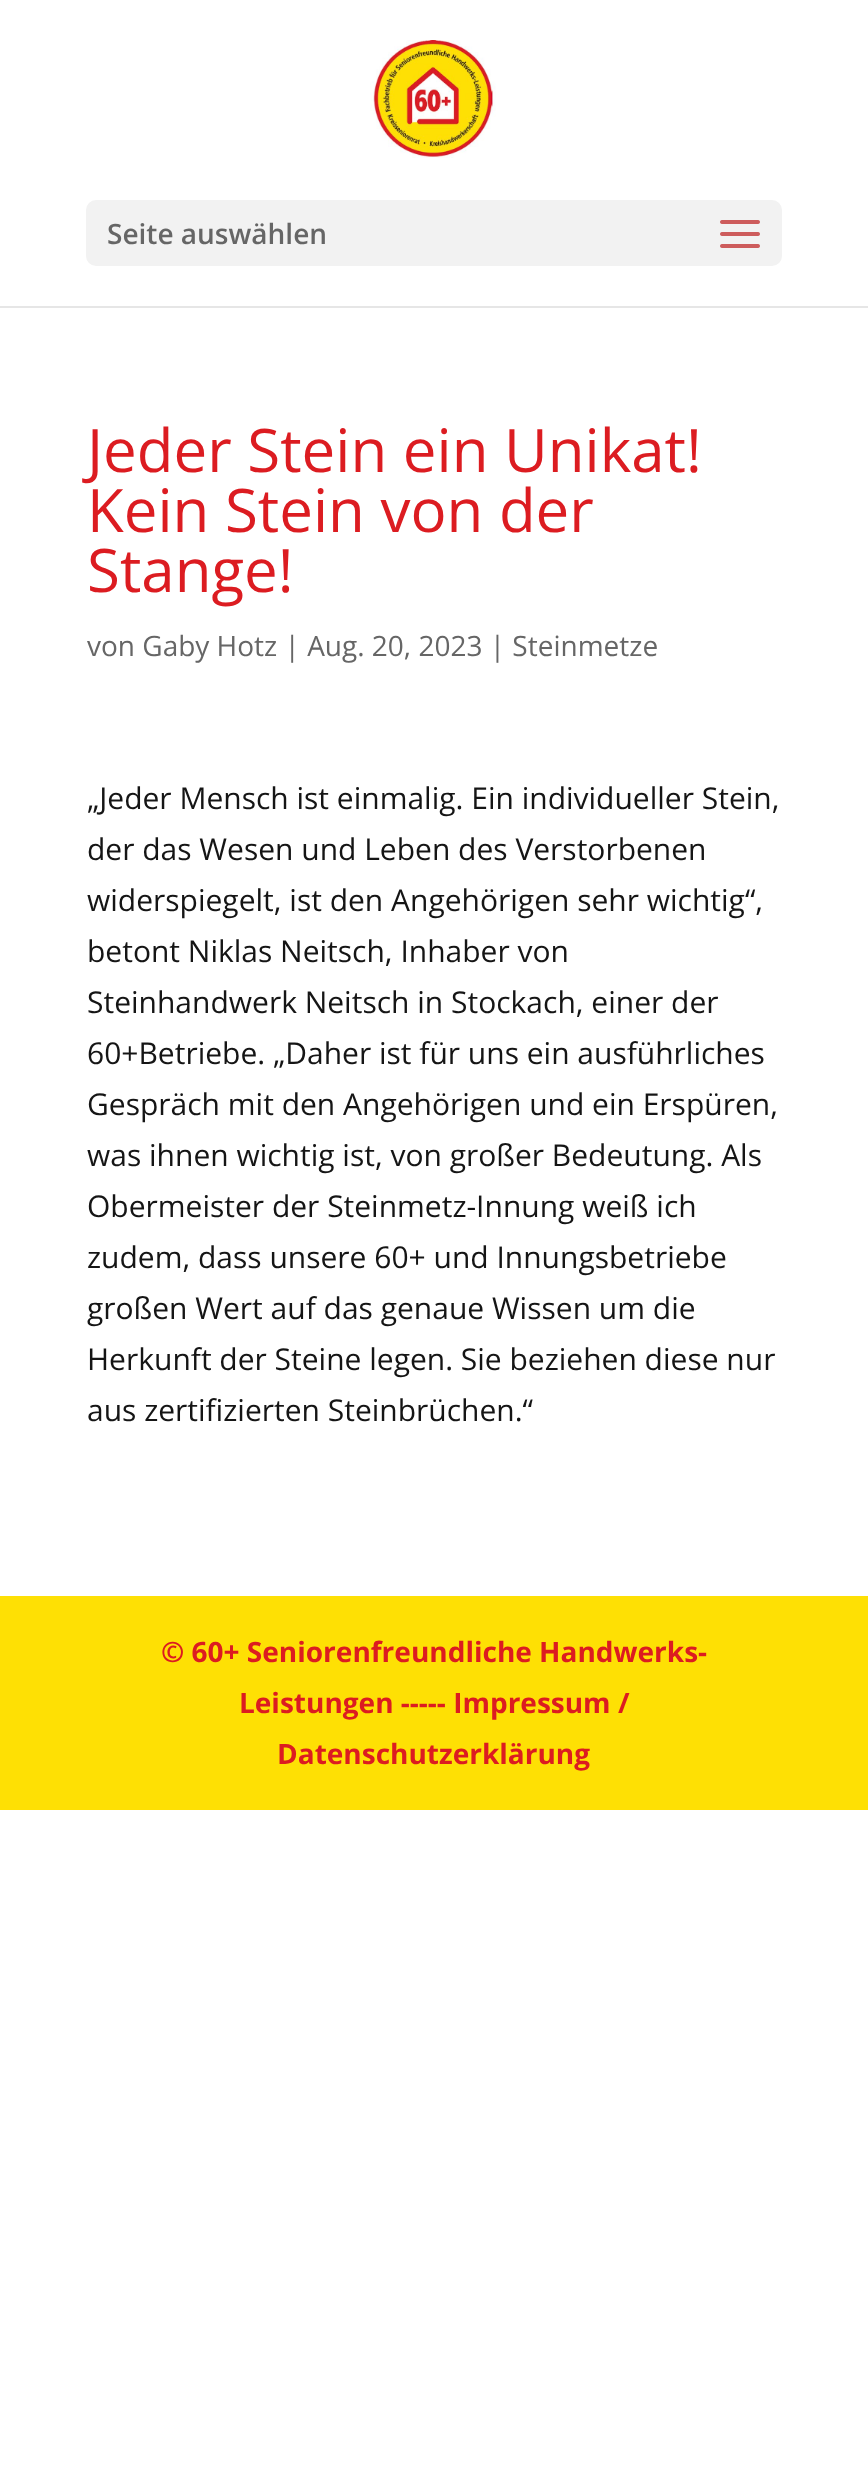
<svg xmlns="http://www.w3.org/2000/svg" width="868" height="2481">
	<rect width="100%" height="100%" fill="#FFFFFF" />
	<rect x="0" y="306" width="868" height="2" fill="#E6E6E6" />
	<image x="370" y="40" width="126" height="118" href="assets/img1.png" />
	<rect x="86" y="200" width="696" height="66" rx="10" fill="#F2F2F2" />
	<text x="107" y="244" font-family="Open Sans" font-size="28" font-weight="600" fill="#666666">Seite auswählen</text>
	<image x="720" y="220" width="40" height="28" href="assets/img2.png" />
	<g font-family="Open Sans" font-size="60" fill="#DC1C21">
		<text x="87" y="472">Jeder Stein ein Unikat!</text>
		<text x="87" y="532">Kein Stein von der</text>
		<text x="87" y="592">Stange!</text>
	</g>
	<text x="87" y="656" font-family="Open Sans" font-size="28" fill="#666666">von Gaby Hotz | Aug. 20, 2023 | Steinmetze</text>
	<g font-family="Open Sans" font-size="30" fill="#151515">
		<text x="87" y="809">„Jeder Mensch ist einmalig. Ein individueller Stein,</text>
		<text x="87" y="860">der das Wesen und Leben des Verstorbenen</text>
		<text x="87" y="911">widerspiegelt, ist den Angehörigen sehr wichtig“,</text>
		<text x="87" y="962">betont Niklas Neitsch, Inhaber von</text>
		<text x="87" y="1013">Steinhandwerk Neitsch in Stockach, einer der</text>
		<text x="87" y="1064">60+Betriebe. „Daher ist für uns ein ausführliches</text>
		<text x="87" y="1115">Gespräch mit den Angehörigen und ein Erspüren,</text>
		<text x="87" y="1166">was ihnen wichtig ist, von großer Bedeutung. Als</text>
		<text x="87" y="1217">Obermeister der Steinmetz-Innung weiß ich</text>
		<text x="87" y="1268">zudem, dass unsere 60+ und Innungsbetriebe</text>
		<text x="87" y="1319">großen Wert auf das genaue Wissen um die</text>
		<text x="87" y="1370">Herkunft der Steine legen. Sie beziehen diese nur</text>
		<text x="87" y="1421">aus zertifizierten Steinbrüchen.“</text>
	</g>
	<rect x="0" y="1596" width="868" height="214" fill="#FEE004" />
	<g font-family="Open Sans" font-size="28" font-weight="700" fill="#DC1C21">
		<text x="161" y="1662">© 60+ Seniorenfreundliche Handwerks-</text>
		<text x="239" y="1713">Leistungen ----- Impressum /</text>
		<text x="277" y="1764">Datenschutzerklärung</text>
	</g>
</svg>
